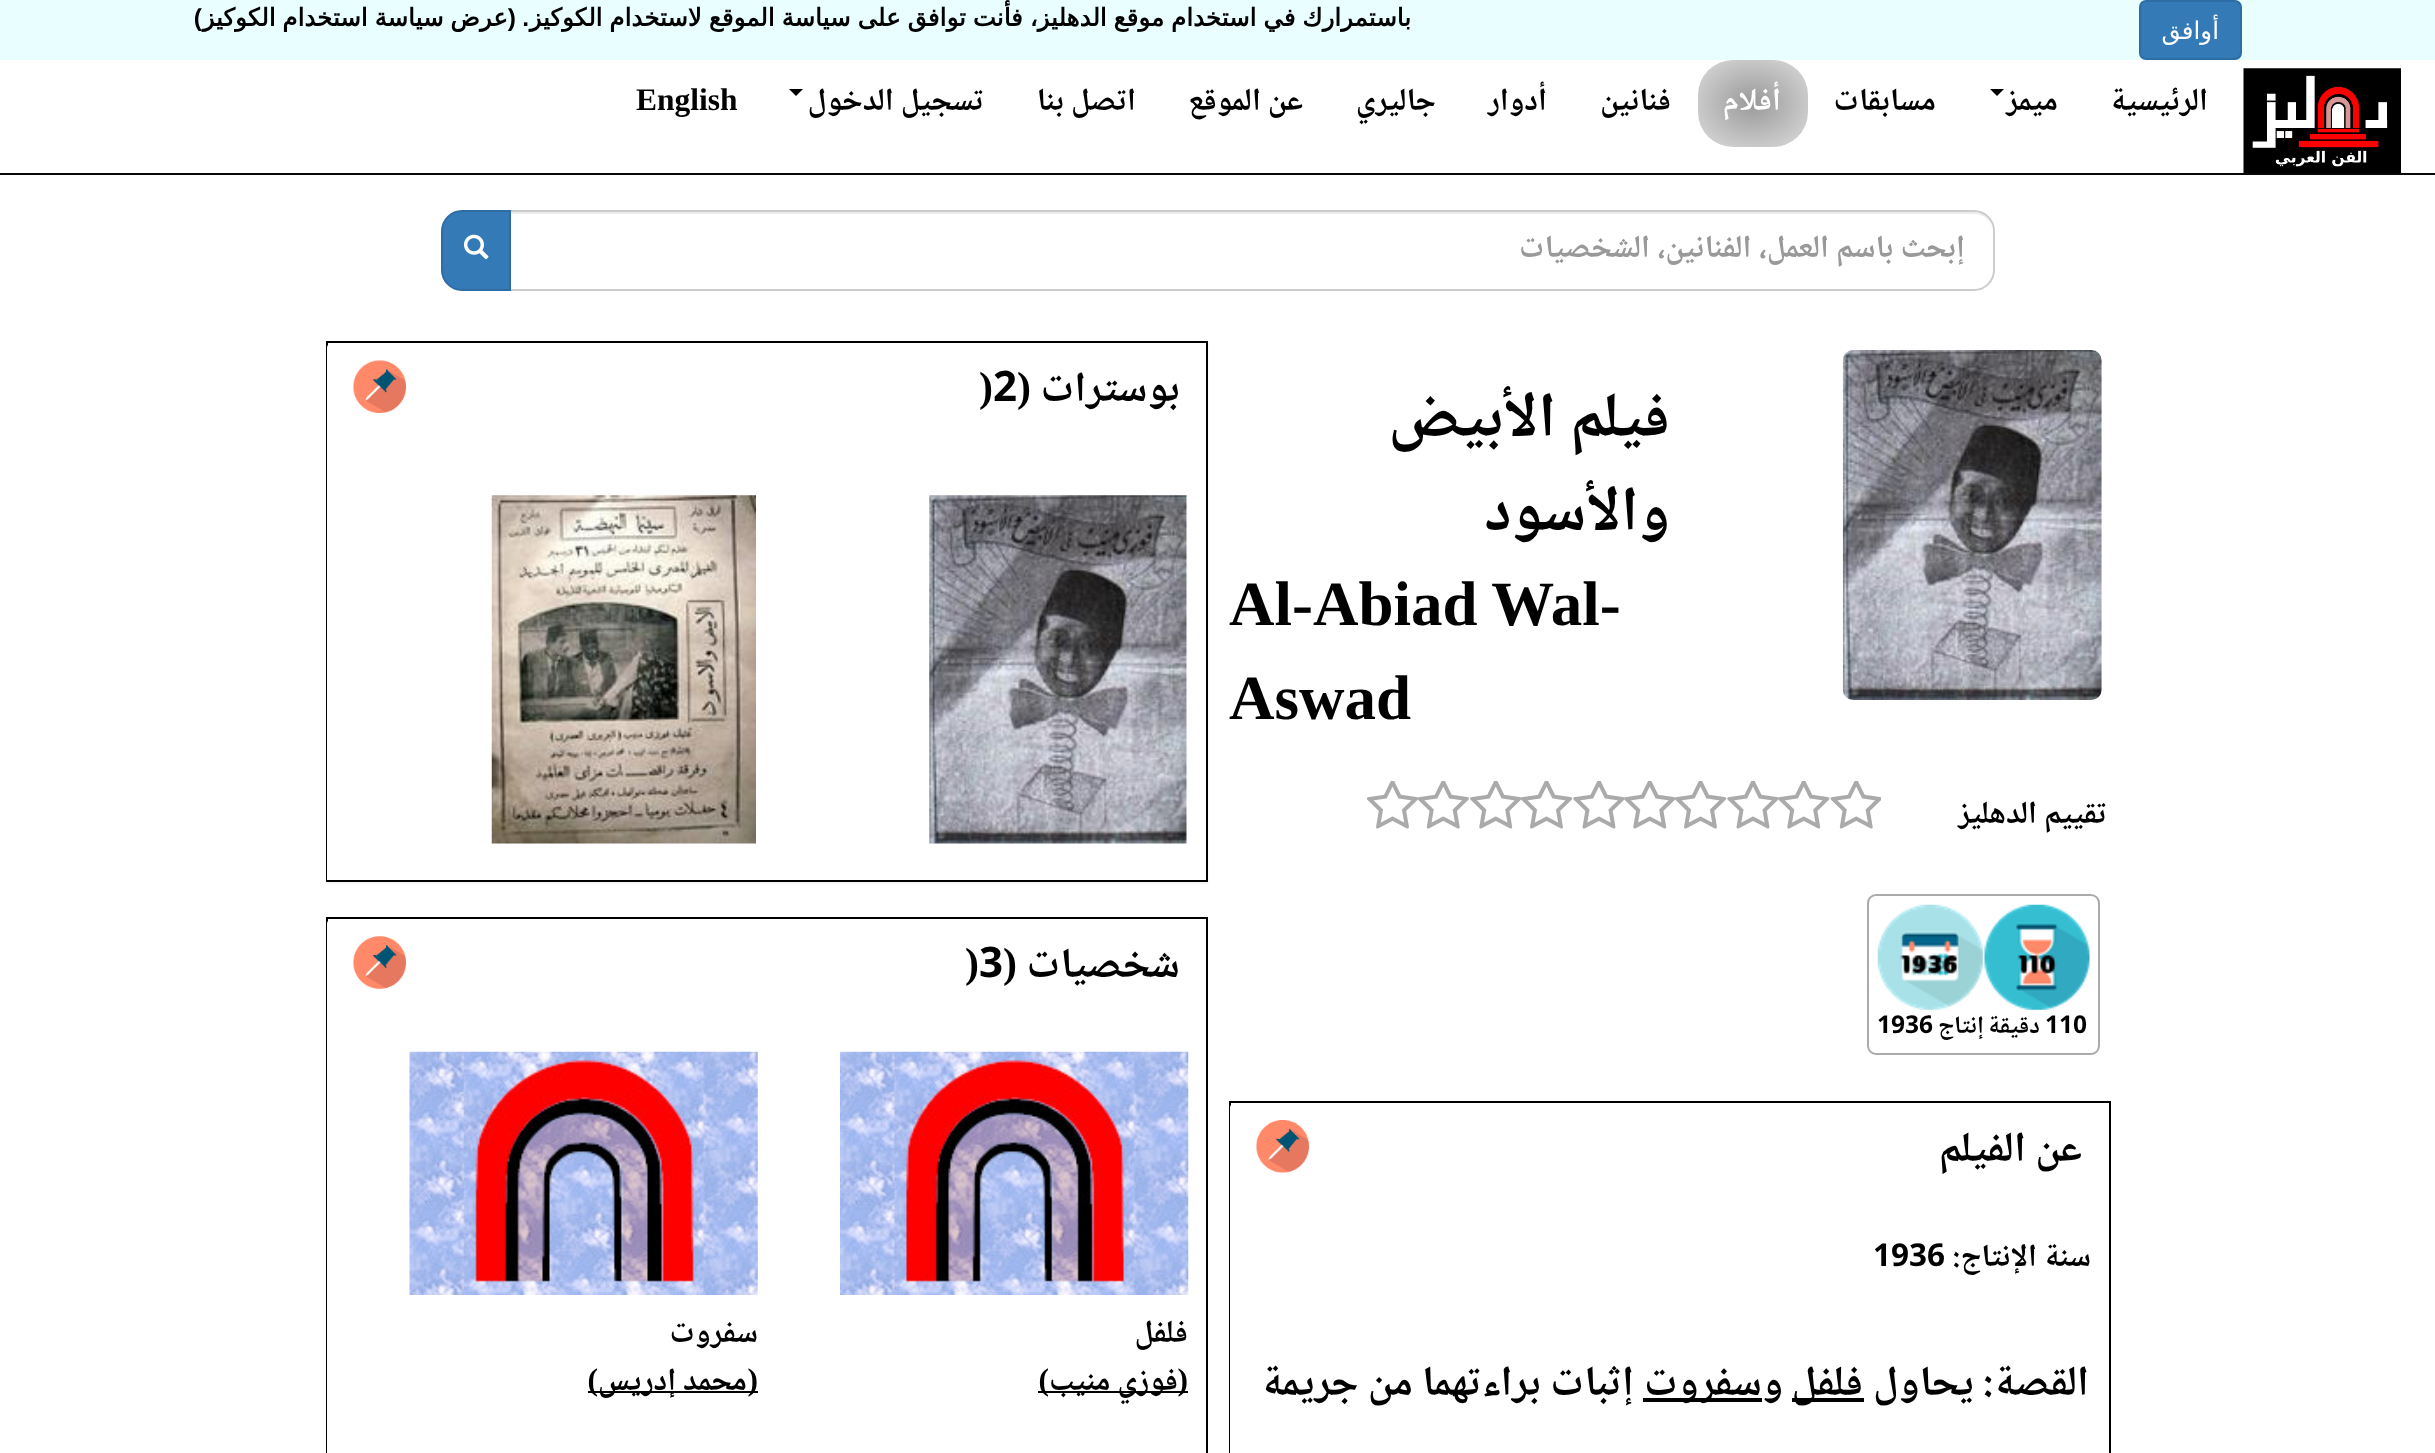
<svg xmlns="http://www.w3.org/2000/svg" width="2435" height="1453">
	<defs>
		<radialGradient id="g1" gradientUnits="userSpaceOnUse" cx="0" cy="0" r="1" gradientTransform="matrix(78 0 0 62 1753 103)"><stop offset="0" stop-color="#999999" /><stop offset="1" stop-color="#DDDDDD" /></radialGradient>
	</defs>
	<rect width="100%" height="100%" fill="#FFFFFF" />
	<rect x="0" y="0" width="2435" height="60" fill="#E9FFFF" />
	<rect x="2140" y="1" width="101" height="58" rx="6" fill="#337AB7" stroke="#2E6DA4" stroke-width="2" />
	<text x="2219" y="39" font-family="DejaVu Sans" font-size="24.5" direction="rtl" fill="#FFFFFF">أوافق</text>
	<text x="529" y="26" font-family="Liberation Sans" font-size="24.5" font-weight="700" direction="rtl" fill="#000000">.</text>
	<text x="1411" y="26" word-spacing="-0.9" font-family="DejaVu Sans" font-size="24.5" font-weight="700" direction="rtl" fill="#000000">باستمرارك في استخدام موقع الدهليز، فأنت توافق على سياسة الموقع لاستخدام الكوكيز</text>
	<g font-family="Liberation Sans" font-size="24.5" font-weight="700" direction="rtl" fill="#000000">
		<text x="516" y="26">(</text>
		<text x="202" y="26">)</text>
	</g>
	<text x="508" y="26" word-spacing="-1" font-family="DejaVu Sans" font-size="24.5" font-weight="700" direction="rtl" fill="#000000">عرض سياسة استخدام الكوكيز</text>
	<rect x="0" y="173" width="2435" height="2" fill="#080808" />
	<image x="2243" y="68" width="158" height="105" href="assets/img1.png" />
	<g font-family="Noto Naskh Arabic" font-size="31.5" font-weight="700" direction="rtl" fill="#000000">
		<text x="2208" y="110">الرئيسية</text>
		<text x="2058" y="110">ميمز</text>
	</g>
	<path d="M1990 89H2004L1997 96Z" fill="#000000" />
	<text x="1936" y="110" font-family="Noto Naskh Arabic" font-size="31.5" font-weight="700" direction="rtl" fill="#000000">مسابقات</text>
	<rect x="1698" y="60" width="110" height="87" rx="35" fill="url(#g1)" />
	<text x="1781" y="110" font-family="Noto Naskh Arabic" font-size="31.5" font-weight="700" direction="rtl" fill="#FFFFFF">أفلام</text>
	<g font-family="Noto Naskh Arabic" font-size="31.5" font-weight="700" direction="rtl" fill="#000000">
		<text x="1671" y="110">فنانين</text>
		<text x="1547" y="110">أدوار</text>
		<text x="1436" y="110">جاليري</text>
		<text x="1303" y="110">عن الموقع</text>
		<text x="1136" y="110">اتصل بنا</text>
		<text x="984" y="110">تسجيل الدخول</text>
	</g>
	<path d="M789 89H803L796 96Z" fill="#000000" />
	<text x="636" y="110" font-family="Liberation Serif" font-size="31.5" font-weight="700" fill="#000000">English</text>
	<path d="M511 214H1974C1985 214 1993 222 1993 233C1993 222 1986 212 1974 212H511Z" fill="#ECECEC" />
	<path d="M510 211H1974C1985 211 1994 220 1994 231V270C1994 281 1985 290 1974 290H510Z" fill="none" stroke="#CCCCCC" stroke-width="2" />
	<text x="1965" y="257" font-family="Noto Naskh Arabic" font-size="31.5" font-weight="700" direction="rtl" fill="#999999">إبحث باسم العمل، الفنانين، الشخصيات</text>
	<path d="M462 211H510V290H462C451 290 442 281 442 270V231C442 220 451 211 462 211Z" fill="#337AB7" stroke="#2E6DA4" stroke-width="2" />
	<image x="463" y="234" width="26" height="26" href="assets/img2.png" />
	<image x="1842" y="350" width="260" height="350" href="assets/img3.png" />
	<g font-family="Noto Naskh Arabic" font-size="63" font-weight="700" direction="rtl" fill="#000000">
		<text x="1670" y="436">فيلم الأبيض</text>
		<text x="1670" y="530">والأسود</text>
	</g>
	<g font-family="Liberation Serif" font-size="63" font-weight="700" fill="#000000">
		<text x="1229" y="625" word-spacing="-1">Al-Abiad Wal-</text>
		<text x="1229" y="719">Aswad</text>
	</g>
	<text x="2107" y="823" font-family="Noto Naskh Arabic" font-size="31.5" font-weight="700" direction="rtl" fill="#000000">تقييم الدهليز</text>
	<image x="1830" y="781" width="51" height="48" href="assets/img4.png" />
	<image x="1727" y="781" width="52" height="48" href="assets/img6.png" />
	<image x="1778" y="781" width="52" height="48" href="assets/img5.png" />
	<image x="1573" y="781" width="52" height="48" href="assets/img6.png" />
	<image x="1624" y="781" width="52" height="48" href="assets/img5.png" />
	<image x="1675" y="781" width="52" height="48" href="assets/img7.png" />
	<image x="1470" y="781" width="52" height="48" href="assets/img8.png" />
	<image x="1521" y="781" width="52" height="48" href="assets/img7.png" />
	<image x="1418" y="781" width="51" height="48" href="assets/img9.png" />
	<image x="1367" y="781" width="51" height="48" href="assets/img10.png" />
	<rect x="1868" y="895" width="231" height="159" rx="8" fill="none" stroke="#AAAAAA" stroke-width="2" />
	<image x="1984" y="904" width="106" height="106" href="assets/img11.png" />
	<text x="2045" y="1033" font-family="Noto Naskh Arabic" font-size="24.5" font-weight="700" fill="#000000">110</text>
	<text x="2040" y="1033" font-family="Noto Naskh Arabic" font-size="24.5" font-weight="700" direction="rtl" fill="#000000">دقيقة</text>
	<image x="1877" y="904" width="106" height="106" href="assets/img12.png" />
	<text x="1984" y="1033" font-family="Noto Naskh Arabic" font-size="24.5" font-weight="700" direction="rtl" fill="#000000">إنتاج</text>
	<text x="1877" y="1033" font-family="Noto Naskh Arabic" font-size="24.5" font-weight="700" fill="#000000">1936</text>
	<rect x="1230" y="1102" width="880" height="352" fill="none" stroke="#000000" stroke-width="2" />
	<path d="M1235 1103H2104C2107 1103 2109 1105 2109 1108V1201H1230V1108C1230 1105 1232 1103 1235 1103Z" fill="#FFFFFF" />
	<text x="2082" y="1161" font-family="Noto Naskh Arabic" font-size="42" font-weight="700" direction="rtl" fill="#000000">عن الفيلم</text>
	<image x="1256" y="1120" width="53" height="53" href="assets/img13.png" />
	<rect x="1230" y="1201" width="1" height="252" fill="#FFFFFF" />
	<text x="2091" y="1266" font-family="Noto Naskh Arabic" font-size="31.5" font-weight="700" direction="rtl" fill="#000000">سنة الإنتاج:</text>
	<text x="1873" y="1266" font-family="Noto Naskh Arabic" font-size="31.5" font-weight="700" fill="#000000">1936</text>
	<g font-family="Noto Naskh Arabic" font-size="42" font-weight="700" direction="rtl" fill="#000000">
		<text x="2089" y="1395">القصة:</text>
		<text x="1974" y="1395">يحاول</text>
	</g>
	<rect x="1792" y="1398" width="72" height="4" fill="#000000" />
	<g font-family="Noto Naskh Arabic" font-size="42" font-weight="700" direction="rtl" fill="#000000">
		<text x="1863" y="1395">فلفل</text>
		<text x="1783" y="1395">و</text>
	</g>
	<rect x="1643" y="1398" width="119" height="4" fill="#000000" />
	<g font-family="Noto Naskh Arabic" font-size="42" font-weight="700" direction="rtl" fill="#000000">
		<text x="1762" y="1395">سفروت</text>
		<text x="1634" y="1395">إثبات براءتهما من جريمة</text>
	</g>
	<rect x="326" y="343" width="882" height="541" fill="#000000" fill-opacity="0.05" filter="blur(1px)" />
	<rect x="328" y="343" width="878" height="5" fill="#FFFFFF" />
	<rect x="327" y="342" width="880" height="539" fill="none" stroke="#000000" stroke-width="2" />
	<path d="M332 343H1201C1204 343 1206 345 1206 348V441H327V348C327 345 329 343 332 343Z" fill="#FFFFFF" />
	<text x="1180" y="401" font-family="Noto Naskh Arabic" font-size="42" font-weight="700" direction="rtl" fill="#000000">بوسترات</text>
	<text x="1031" y="401" font-family="Liberation Serif" font-size="42" font-weight="700" direction="rtl" fill="#000000">(</text>
	<text x="993" y="401" font-family="Noto Naskh Arabic" font-size="42" font-weight="700" fill="#000000">2</text>
	<text x="979" y="401" font-family="Liberation Serif" font-size="42" font-weight="700" fill="#000000">)</text>
	<image x="353" y="360" width="53" height="53" href="assets/img14.png" />
	<rect x="327" y="441" width="879" height="439" fill="#FFFFFF" />
	<image x="929" y="495" width="258" height="349" href="assets/img15.png" />
	<image x="491" y="495" width="265" height="349" href="assets/img16.png" />
	<rect x="327" y="918" width="880" height="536" fill="none" stroke="#000000" stroke-width="2" />
	<path d="M332 919H1201C1204 919 1206 921 1206 924V1017H327V924C327 921 329 919 332 919Z" fill="#FFFFFF" />
	<text x="1180" y="977" font-family="Noto Naskh Arabic" font-size="42" font-weight="700" direction="rtl" fill="#000000">شخصيات</text>
	<text x="1017" y="977" font-family="Liberation Serif" font-size="42" font-weight="700" direction="rtl" fill="#000000">(</text>
	<text x="979" y="977" font-family="Noto Naskh Arabic" font-size="42" font-weight="700" fill="#000000">3</text>
	<text x="965" y="977" font-family="Liberation Serif" font-size="42" font-weight="700" fill="#000000">)</text>
	<image x="353" y="936" width="53" height="53" href="assets/img17.png" />
	<rect x="327" y="1017" width="1" height="436" fill="#FFFFFF" />
	<image x="840" y="1051" width="349" height="244" href="assets/img18.png" />
	<text x="1188" y="1342" font-family="Noto Naskh Arabic" font-size="31.5" font-weight="700" direction="rtl" fill="#000000">فلفل</text>
	<rect x="1038" y="1391" width="150" height="2" fill="#000000" />
	<text x="1188" y="1390" font-family="Liberation Serif" font-size="31.5" font-weight="700" direction="rtl" fill="#000000">(</text>
	<text x="1178" y="1390" font-family="Noto Naskh Arabic" font-size="31.5" font-weight="700" direction="rtl" fill="#000000">فوزي منيب</text>
	<text x="1049" y="1390" font-family="Liberation Serif" font-size="31.5" font-weight="700" direction="rtl" fill="#000000">)</text>
	<image x="409" y="1051" width="349" height="244" href="assets/img19.png" />
	<text x="758" y="1342" font-family="Noto Naskh Arabic" font-size="31.5" font-weight="700" direction="rtl" fill="#000000">سفروت</text>
	<rect x="588" y="1391" width="170" height="2" fill="#000000" />
	<text x="758" y="1390" font-family="Liberation Serif" font-size="31.5" font-weight="700" direction="rtl" fill="#000000">(</text>
	<text x="747" y="1390" font-family="Noto Naskh Arabic" font-size="31.5" font-weight="700" direction="rtl" fill="#000000">محمد إدريس</text>
	<text x="598" y="1390" font-family="Liberation Serif" font-size="31.5" font-weight="700" direction="rtl" fill="#000000">)</text>
</svg>
